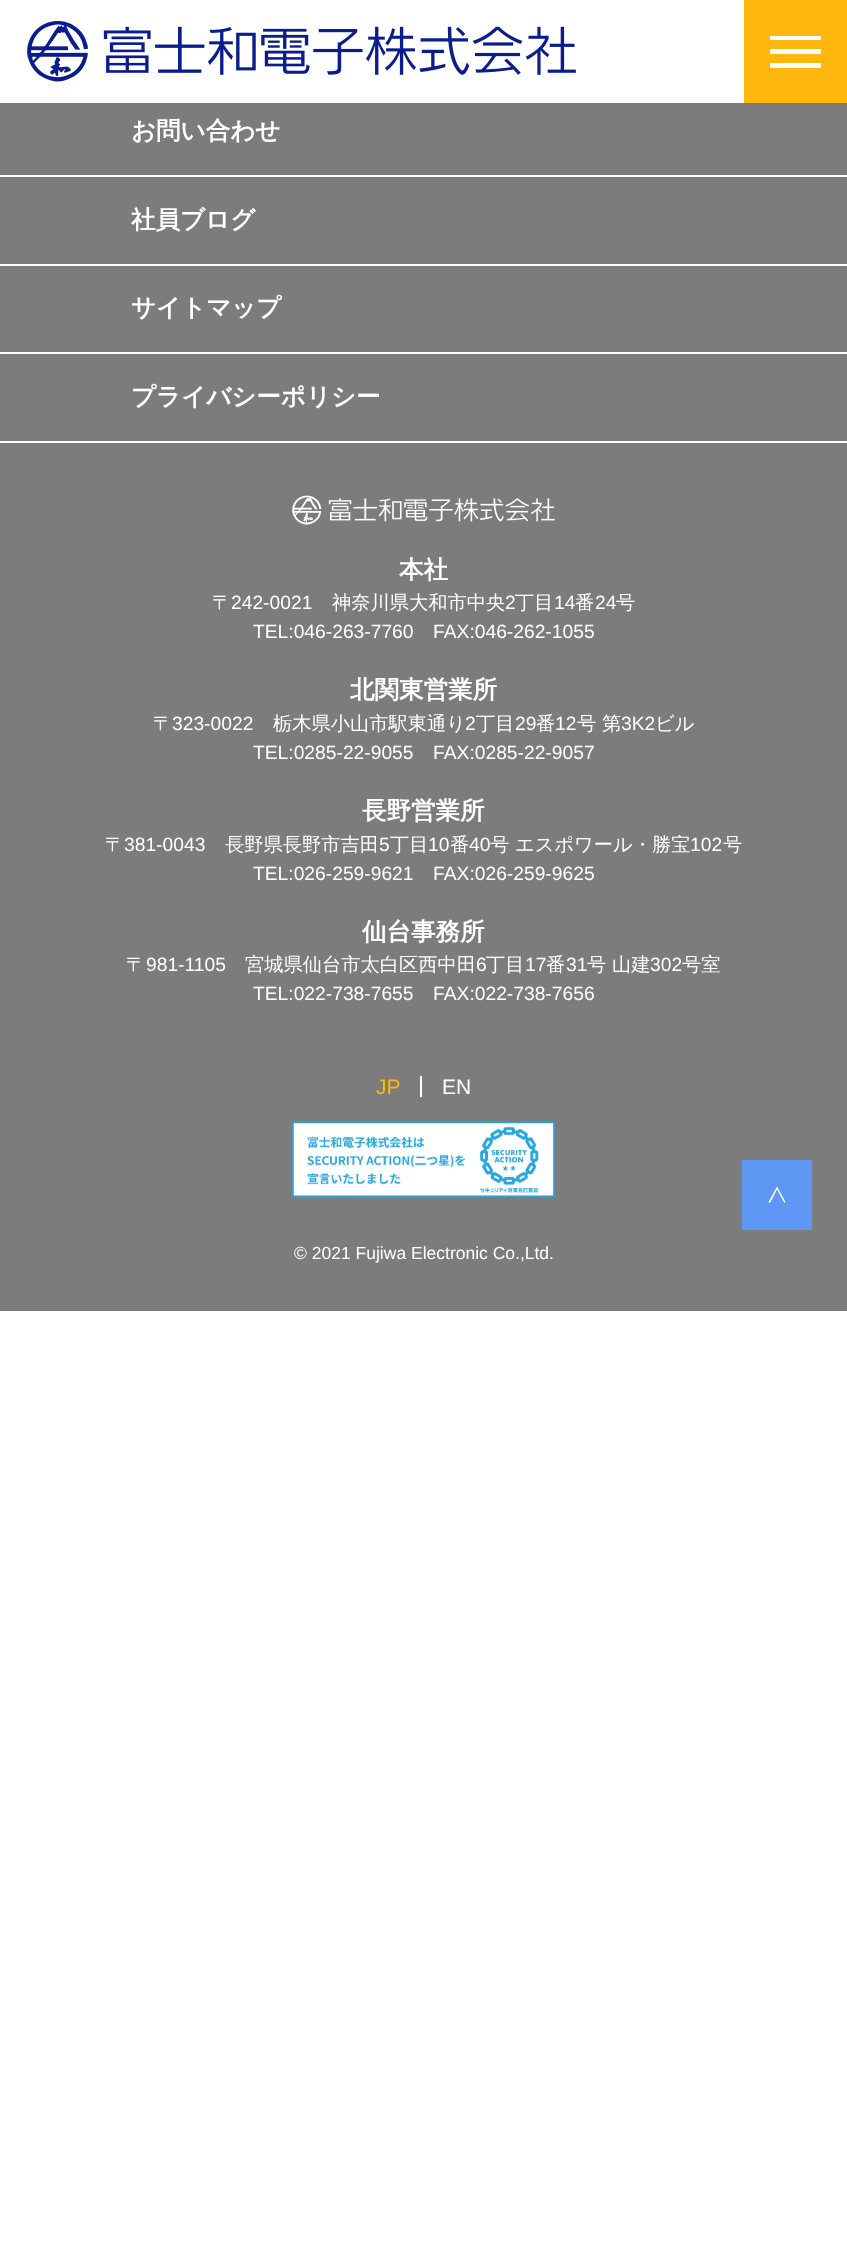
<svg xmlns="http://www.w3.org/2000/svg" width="847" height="2267">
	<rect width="100%" height="100%" fill="#FFFFFF" />
	<image x="27" y="21" width="549" height="61" href="assets/img1.png" />
	<rect x="744" y="0" width="103" height="103" fill="#FFB70D" />
	<rect x="770" y="36" width="51" height="4" fill="#FFFFFF" />
	<rect x="770" y="49" width="51" height="5" fill="#FFFFFF" />
	<rect x="770" y="63" width="51" height="5" fill="#FFFFFF" />
	<rect x="0" y="103" width="847" height="1208" fill="#7C7C7C" />
	<rect x="0" y="175" width="847" height="2" fill="#FFFFFF" />
	<text x="131" y="139" font-family="WenQuanYi Zen Hei" font-size="24.5" font-weight="700" fill="#FFFFFF">お問い合わせ</text>
	<rect x="0" y="264" width="847" height="2" fill="#FFFFFF" />
	<text x="131" y="228" font-family="WenQuanYi Zen Hei" font-size="24.5" font-weight="700" fill="#FFFFFF">社員ブログ</text>
	<rect x="0" y="352" width="847" height="2" fill="#FFFFFF" />
	<text x="131" y="316" font-family="WenQuanYi Zen Hei" font-size="24.5" font-weight="700" fill="#FFFFFF">サイトマップ</text>
	<rect x="0" y="441" width="847" height="2" fill="#FFFFFF" />
	<text x="131" y="405" font-family="WenQuanYi Zen Hei" font-size="24.5" font-weight="700" fill="#FFFFFF">プライバシーポリシー</text>
	<image x="292" y="495" width="263" height="30" href="assets/img2.png" />
	<text x="399" y="578" font-family="WenQuanYi Zen Hei" font-size="24.5" font-weight="700" fill="#FFFFFF">本社</text>
	<text x="212" y="609" font-family="WenQuanYi Zen Hei" font-size="19.25" font-weight="500" fill="#FFFFFF">〒</text>
	<text x="231" y="609" font-family="Liberation Sans" font-size="19.25" fill="#FFFFFF">242-0021</text>
	<text x="332" y="609" font-family="WenQuanYi Zen Hei" font-size="19.25" font-weight="500" fill="#FFFFFF">神奈川県大和市中央</text>
	<text x="505" y="609" font-family="Liberation Sans" font-size="19.25" fill="#FFFFFF">2</text>
	<text x="515" y="609" font-family="WenQuanYi Zen Hei" font-size="19.25" font-weight="500" fill="#FFFFFF">丁目</text>
	<text x="554" y="609" font-family="Liberation Sans" font-size="19.25" fill="#FFFFFF">14</text>
	<text x="575" y="609" font-family="WenQuanYi Zen Hei" font-size="19.25" font-weight="500" fill="#FFFFFF">番</text>
	<text x="595" y="609" font-family="Liberation Sans" font-size="19.25" fill="#FFFFFF">24</text>
	<text x="616" y="609" font-family="WenQuanYi Zen Hei" font-size="19.25" font-weight="500" fill="#FFFFFF">号</text>
	<g font-family="Liberation Sans" font-size="19.25" fill="#FFFFFF">
		<text x="253" y="638">TEL:046-263-7760</text>
		<text x="433" y="638">FAX:046-262-1055</text>
	</g>
	<text x="350" y="698" font-family="WenQuanYi Zen Hei" font-size="24.5" font-weight="700" fill="#FFFFFF">北関東営業所</text>
	<text x="153" y="730" font-family="WenQuanYi Zen Hei" font-size="19.25" font-weight="500" fill="#FFFFFF">〒</text>
	<text x="172" y="730" font-family="Liberation Sans" font-size="19.25" fill="#FFFFFF">323-0022</text>
	<text x="273" y="730" font-family="WenQuanYi Zen Hei" font-size="19.25" font-weight="500" fill="#FFFFFF">栃木県小山市駅東通り</text>
	<text x="465" y="730" font-family="Liberation Sans" font-size="19.25" fill="#FFFFFF">2</text>
	<text x="476" y="730" font-family="WenQuanYi Zen Hei" font-size="19.25" font-weight="500" fill="#FFFFFF">丁目</text>
	<text x="515" y="730" font-family="Liberation Sans" font-size="19.25" fill="#FFFFFF">29</text>
	<text x="536" y="730" font-family="WenQuanYi Zen Hei" font-size="19.25" font-weight="500" fill="#FFFFFF">番</text>
	<text x="555" y="730" font-family="Liberation Sans" font-size="19.25" fill="#FFFFFF">12</text>
	<text x="577" y="730" font-family="WenQuanYi Zen Hei" font-size="19.25" font-weight="500" fill="#FFFFFF">号 第</text>
	<text x="621" y="730" font-family="Liberation Sans" font-size="19.25" fill="#FFFFFF">3K2</text>
	<text x="655" y="730" font-family="WenQuanYi Zen Hei" font-size="19.25" font-weight="500" fill="#FFFFFF">ビル</text>
	<g font-family="Liberation Sans" font-size="19.25" fill="#FFFFFF">
		<text x="253" y="759">TEL:0285-22-9055</text>
		<text x="433" y="759">FAX:0285-22-9057</text>
	</g>
	<text x="362" y="819" font-family="WenQuanYi Zen Hei" font-size="24.5" font-weight="700" fill="#FFFFFF">長野営業所</text>
	<text x="105" y="851" font-family="WenQuanYi Zen Hei" font-size="19.25" font-weight="500" fill="#FFFFFF">〒</text>
	<text x="124" y="851" font-family="Liberation Sans" font-size="19.25" fill="#FFFFFF">381-0043</text>
	<text x="225" y="851" font-family="WenQuanYi Zen Hei" font-size="19.25" font-weight="500" fill="#FFFFFF">長野県長野市吉田</text>
	<text x="379" y="851" font-family="Liberation Sans" font-size="19.25" fill="#FFFFFF">5</text>
	<text x="390" y="851" font-family="WenQuanYi Zen Hei" font-size="19.25" font-weight="500" fill="#FFFFFF">丁目</text>
	<text x="428" y="851" font-family="Liberation Sans" font-size="19.25" fill="#FFFFFF">10</text>
	<text x="450" y="851" font-family="WenQuanYi Zen Hei" font-size="19.25" font-weight="500" fill="#FFFFFF">番</text>
	<text x="469" y="851" font-family="Liberation Sans" font-size="19.25" fill="#FFFFFF">40</text>
	<text x="490" y="851" font-family="WenQuanYi Zen Hei" font-size="19.25" font-weight="500" fill="#FFFFFF">号 エスポワール・勝宝</text>
	<text x="690" y="851" font-family="Liberation Sans" font-size="19.25" fill="#FFFFFF">102</text>
	<text x="723" y="851" font-family="WenQuanYi Zen Hei" font-size="19.25" font-weight="500" fill="#FFFFFF">号</text>
	<g font-family="Liberation Sans" font-size="19.25" fill="#FFFFFF">
		<text x="253" y="880">TEL:026-259-9621</text>
		<text x="433" y="880">FAX:026-259-9625</text>
	</g>
	<text x="362" y="940" font-family="WenQuanYi Zen Hei" font-size="24.5" font-weight="700" fill="#FFFFFF">仙台事務所</text>
	<text x="126" y="971" font-family="WenQuanYi Zen Hei" font-size="19.25" font-weight="500" fill="#FFFFFF">〒</text>
	<text x="146" y="971" font-family="Liberation Sans" font-size="19.25" fill="#FFFFFF">981-1105</text>
	<text x="245" y="971" font-family="WenQuanYi Zen Hei" font-size="19.25" font-weight="500" fill="#FFFFFF">宮城県仙台市太白区西中田</text>
	<text x="476" y="971" font-family="Liberation Sans" font-size="19.25" fill="#FFFFFF">6</text>
	<text x="486" y="971" font-family="WenQuanYi Zen Hei" font-size="19.25" font-weight="500" fill="#FFFFFF">丁目</text>
	<text x="525" y="971" font-family="Liberation Sans" font-size="19.25" fill="#FFFFFF">17</text>
	<text x="546" y="971" font-family="WenQuanYi Zen Hei" font-size="19.25" font-weight="500" fill="#FFFFFF">番</text>
	<text x="566" y="971" font-family="Liberation Sans" font-size="19.25" fill="#FFFFFF">31</text>
	<text x="587" y="971" font-family="WenQuanYi Zen Hei" font-size="19.25" font-weight="500" fill="#FFFFFF">号 山建</text>
	<text x="650" y="971" font-family="Liberation Sans" font-size="19.25" fill="#FFFFFF">302</text>
	<text x="682" y="971" font-family="WenQuanYi Zen Hei" font-size="19.25" font-weight="500" fill="#FFFFFF">号室</text>
	<g font-family="Liberation Sans" font-size="19.25" fill="#FFFFFF">
		<text x="253" y="1000">TEL:022-738-7655</text>
		<text x="433" y="1000">FAX:022-738-7656</text>
	</g>
	<text x="376" y="1094" font-family="Liberation Sans" font-size="21" fill="#FFB70D">JP</text>
	<rect x="420" y="1076" width="2" height="21" fill="#FFFFFF" />
	<text x="442" y="1094" font-family="Liberation Sans" font-size="21" fill="#FFFFFF">EN</text>
	<image x="292" y="1121" width="263" height="76" href="assets/img3.png" />
	<text x="294" y="1259" font-family="Liberation Sans" font-size="17.5" fill="#FFFFFF">© 2021 Fujiwa Electronic Co.,Ltd.</text>
	<rect x="742" y="1160" width="70" height="70" fill="#5E97F4" />
	<path d="M785.5 1202L784.5 1203L777 1189.5L770 1203L768.5 1202L777 1186.5Z" fill="#FFFFFF" />
</svg>
